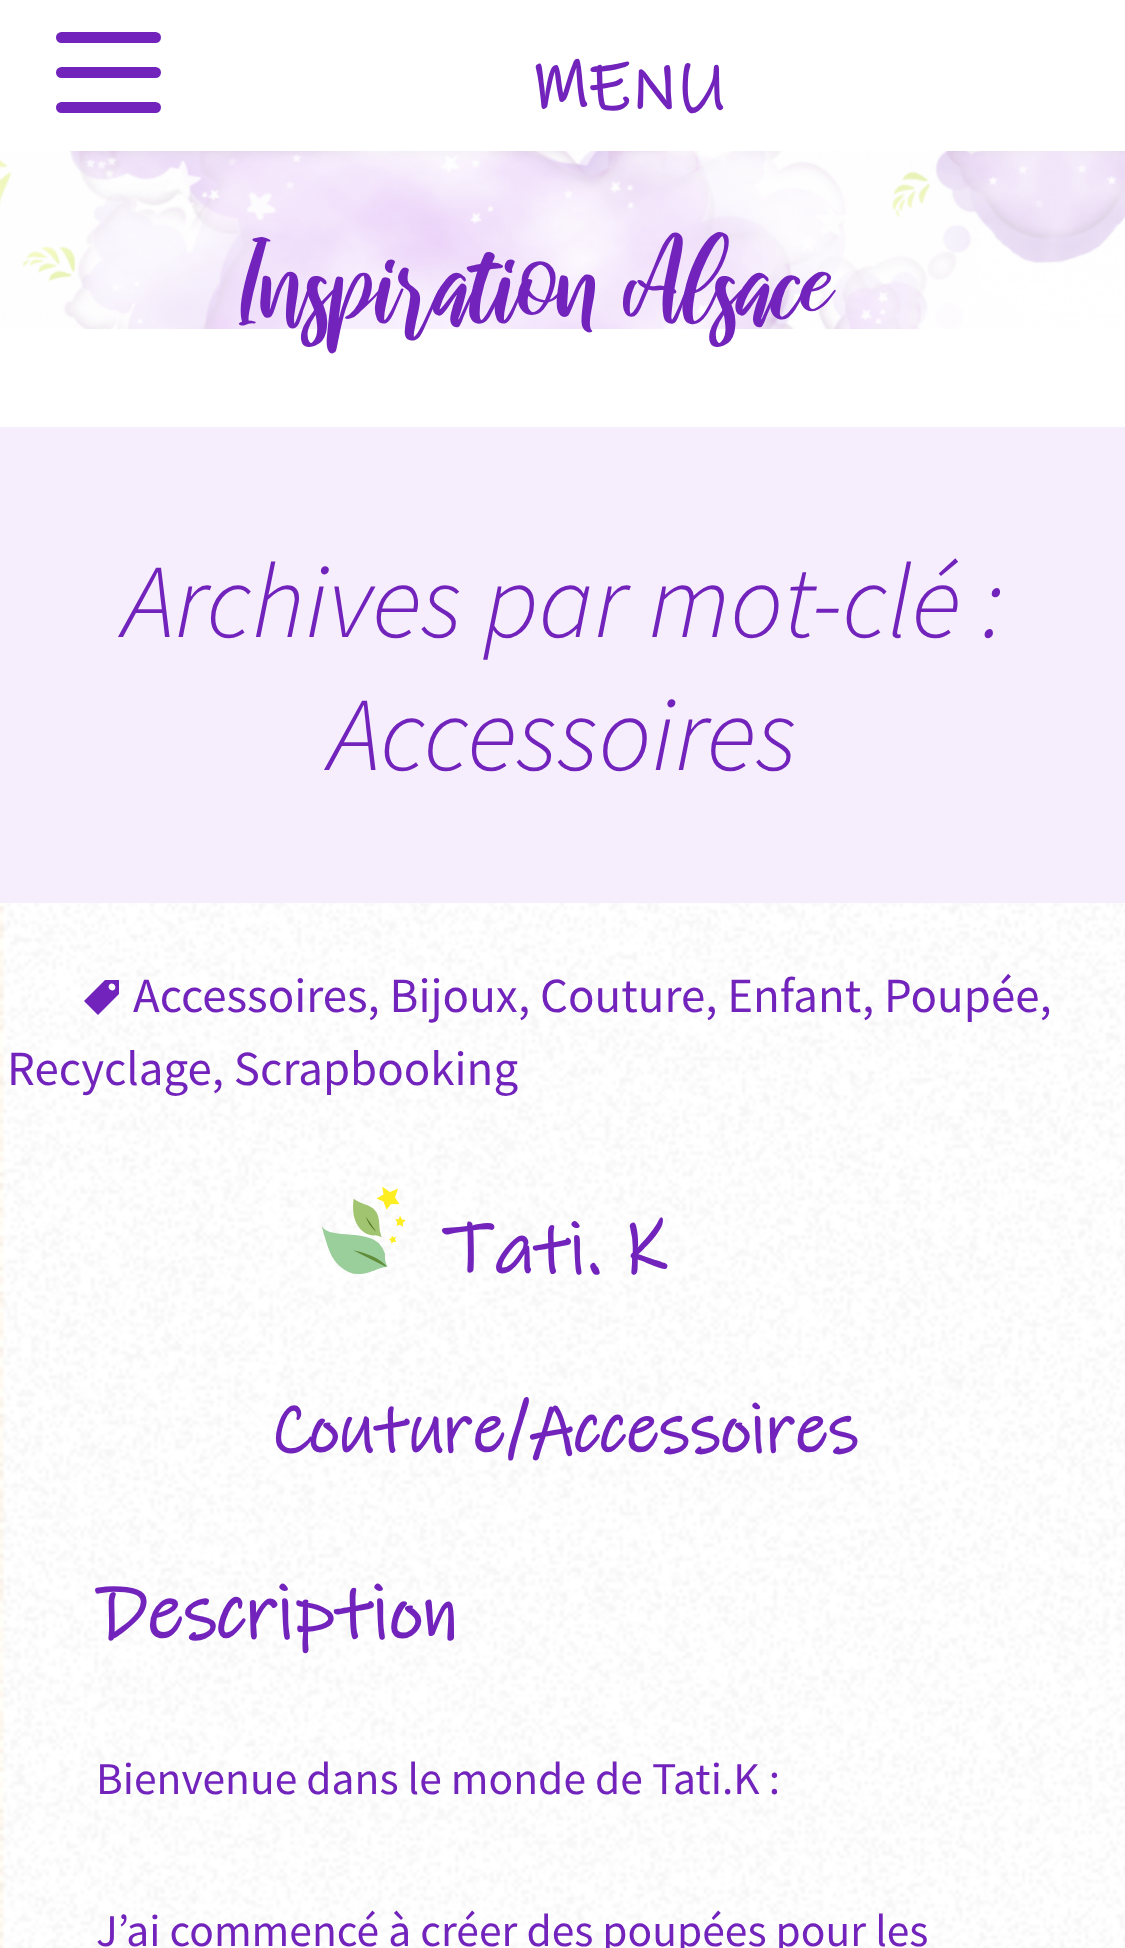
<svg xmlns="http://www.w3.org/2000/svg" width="1125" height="1948">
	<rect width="100%" height="100%" fill="#FFFFFF" />
	<rect x="56" y="32" width="105" height="11" rx="5.5" fill="#7223BC" />
	<rect x="56" y="67" width="105" height="11" rx="5.5" fill="#7223BC" />
	<rect x="56" y="102" width="105" height="11" rx="5.5" fill="#7223BC" />
	<text x="531" y="109" font-family="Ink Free" font-size="70" font-weight="700" fill="#7223BC">MENU</text>
	<image x="0" y="151" width="1125" height="178" href="assets/img1.png" />
	<text x="241" y="326" font-family="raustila" font-size="112" fill="#7223BC">Inspiration Alsace</text>
	<image x="0" y="903" width="1125" height="1045" href="assets/img2.png" />
	<rect x="0" y="427" width="1125" height="476" fill="#F7EEFD" />
	<g font-family="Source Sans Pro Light" font-size="105" font-weight="300" font-style="italic" fill="#7223BC">
		<text x="123" y="637">Archives par mot-clé :</text>
		<text x="329" y="770">Accessoires</text>
	</g>
	<path d="M84 1001L105 980H119V994L98 1015ZM109.5 984.5C106.5 987.5 111.5 992.5 114.5 989.5C117.5 986.5 112.5 981.5 109.5 984.5Z" fill="#7223BC" />
	<g font-family="Source Sans Pro" font-size="49" fill="#7223BC">
		<text x="133" y="1012">Accessoires, Bijoux</text>
		<text x="518" y="1012">, Couture, Enfant</text>
		<text x="862" y="1012">, Poupée,</text>
		<text x="7" y="1085">Recyclage, Scrapbooking</text>
	</g>
	<image x="322" y="1187" width="84" height="87" href="assets/img3.png" />
	<text x="442" y="1273" font-family="Ink Free" font-size="73.5" font-weight="700" fill="#7223BC">Tati. K</text>
	<text x="270" y="1452" font-family="Ink Free" font-size="70" font-weight="700" fill="#7223BC">Couture/Accessoires</text>
	<text x="96" y="1638" font-family="Ink Free" font-size="77" font-weight="700" fill="#7223BC">Description</text>
	<g font-family="Source Sans Pro" font-size="45.5" fill="#7223BC">
		<text x="96" y="1794">Bienvenue dans le monde de Tati.K :</text>
		<text x="96" y="1946">J’ai commencé à créer des poupées pour les</text>
	</g>
</svg>
